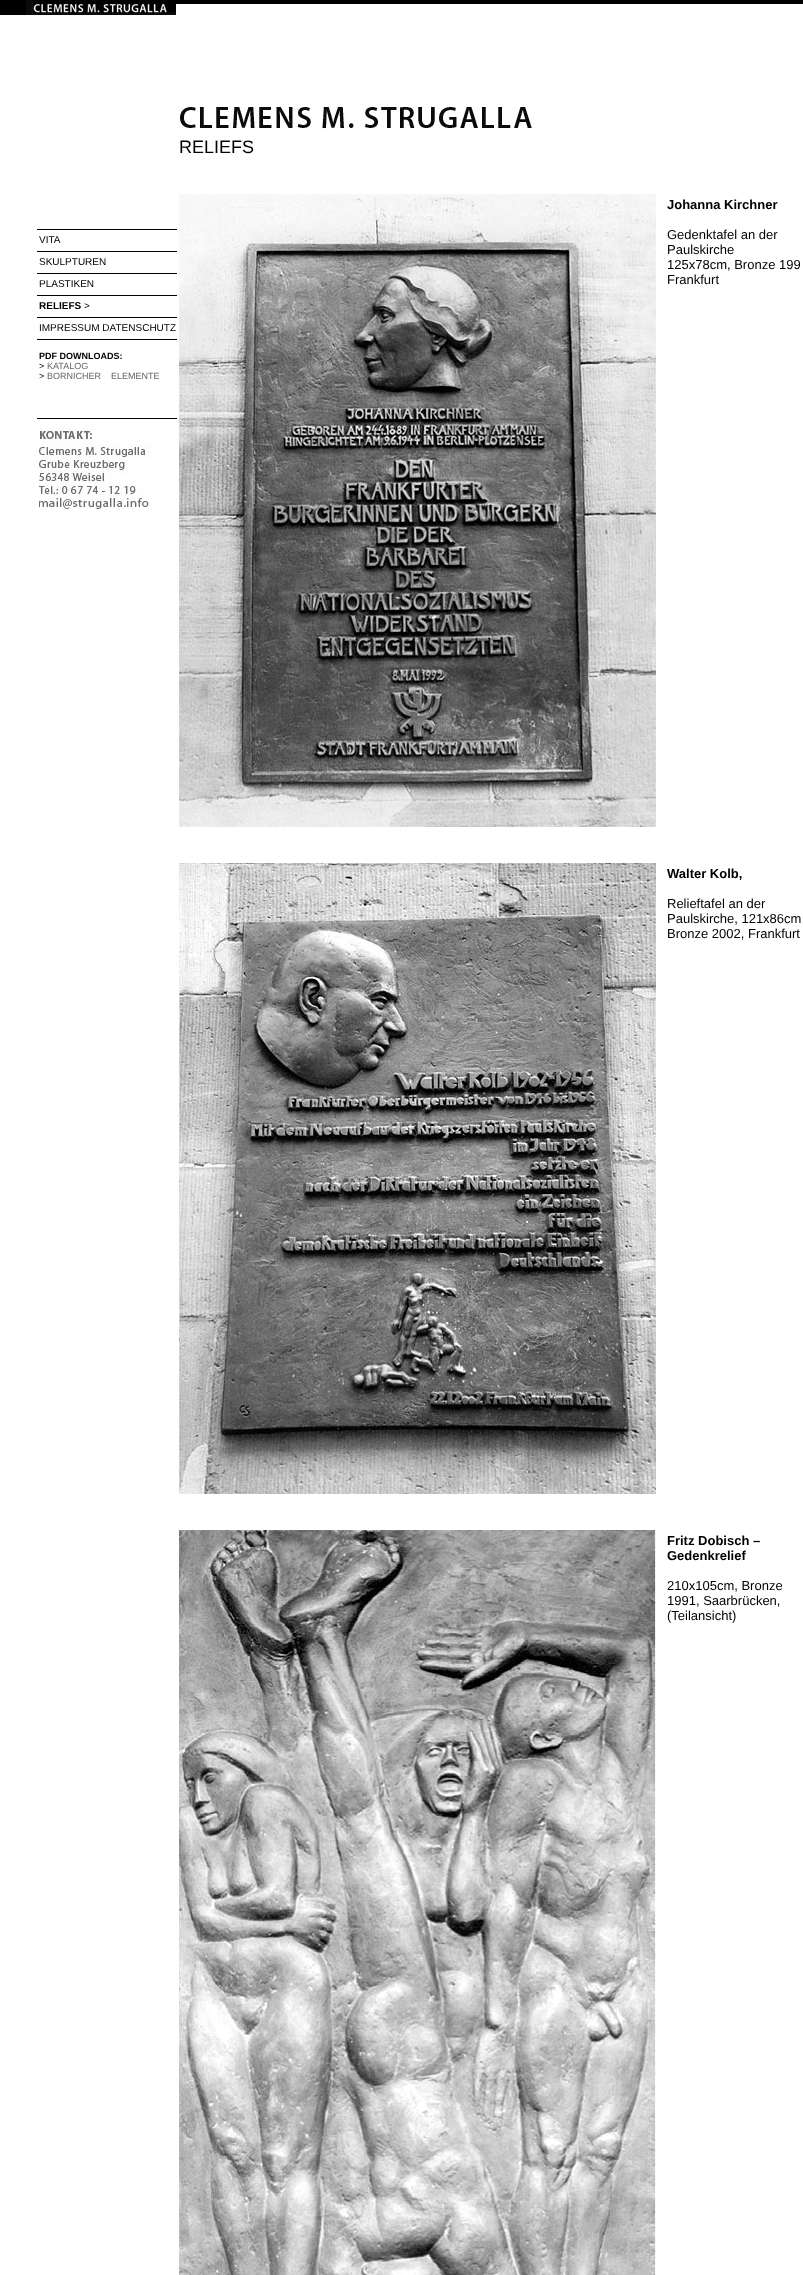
<svg xmlns="http://www.w3.org/2000/svg" width="803" height="2275">
	<rect width="100%" height="100%" fill="#FFFFFF" />
	<image x="0" y="0" width="803" height="15" href="assets/img1.png" />
	<image x="26" y="0" width="150" height="15" href="assets/img2.png" />
	<rect x="37" y="229" width="140" height="1" fill="#000000" />
	<text x="39" y="243" font-family="Liberation Sans" font-size="10" fill="#000000">VITA</text>
	<rect x="37" y="251" width="140" height="1" fill="#000000" />
	<text x="39" y="265" font-family="Liberation Sans" font-size="10" fill="#000000">SKULPTUREN</text>
	<rect x="37" y="273" width="140" height="1" fill="#000000" />
	<text x="39" y="287" font-family="Liberation Sans" font-size="10" fill="#000000">PLASTIKEN</text>
	<rect x="37" y="295" width="140" height="1" fill="#000000" />
	<text x="39" y="309" font-family="Liberation Sans" font-size="10" font-weight="700" fill="#000000">RELIEFS</text>
	<text x="84" y="309" font-family="Liberation Sans" font-size="10" fill="#000000">&gt;</text>
	<rect x="37" y="317" width="140" height="1" fill="#000000" />
	<text x="39" y="331" font-family="Liberation Sans" font-size="10" fill="#000000">IMPRESSUM DATENSCHUTZ</text>
	<rect x="37" y="339" width="140" height="1" fill="#000000" />
	<text x="39" y="359" font-family="Liberation Sans" font-size="9" font-weight="700" fill="#000000">PDF DOWNLOADS:</text>
	<text x="39" y="369" font-family="Liberation Sans" font-size="9" fill="#000000">&gt;</text>
	<text x="47" y="369" font-family="Liberation Sans" font-size="9" fill="#666666">KATALOG</text>
	<text x="39" y="379" font-family="Liberation Sans" font-size="9" fill="#000000">&gt;</text>
	<text x="47" y="379" font-family="Liberation Sans" font-size="9" fill="#666666" xml:space="preserve">BORNICHER    ELEMENTE</text>
	<rect x="37" y="418" width="140" height="1" fill="#000000" />
	<image x="39" y="428" width="112" height="86" href="assets/img3.png" />
	<image x="179" y="107" width="357" height="22" href="assets/img4.png" />
	<text x="179" y="153" font-family="Liberation Sans" font-size="18" fill="#000000">RELIEFS</text>
	<image x="179" y="194" width="477" height="633" href="assets/img5.png" />
	<text x="667" y="209" font-family="Liberation Sans" font-size="13" font-weight="700" fill="#000000">Johanna Kirchner</text>
	<g font-family="Liberation Sans" font-size="13" fill="#000000">
		<text x="667" y="239">Gedenktafel an der</text>
		<text x="667" y="254">Paulskirche</text>
		<text x="667" y="269">125x78cm, Bronze 199</text>
		<text x="667" y="284">Frankfurt</text>
	</g>
	<image x="179" y="863" width="477" height="631" href="assets/img6.png" />
	<text x="667" y="878" font-family="Liberation Sans" font-size="13" font-weight="700" fill="#000000">Walter Kolb,</text>
	<g font-family="Liberation Sans" font-size="13" fill="#000000">
		<text x="667" y="908">Relieftafel an der</text>
		<text x="667" y="923">Paulskirche, 121x86cm</text>
		<text x="667" y="938">Bronze 2002, Frankfurt</text>
	</g>
	<image x="179" y="1530" width="477" height="745" href="assets/img7.png" />
	<g font-family="Liberation Sans" font-size="13" font-weight="700" fill="#000000">
		<text x="667" y="1545">Fritz Dobisch –</text>
		<text x="667" y="1560">Gedenkrelief</text>
	</g>
	<g font-family="Liberation Sans" font-size="13" fill="#000000">
		<text x="667" y="1590">210x105cm, Bronze</text>
		<text x="667" y="1605">1991, Saarbrücken,</text>
		<text x="667" y="1620">(Teilansicht)</text>
	</g>
</svg>
